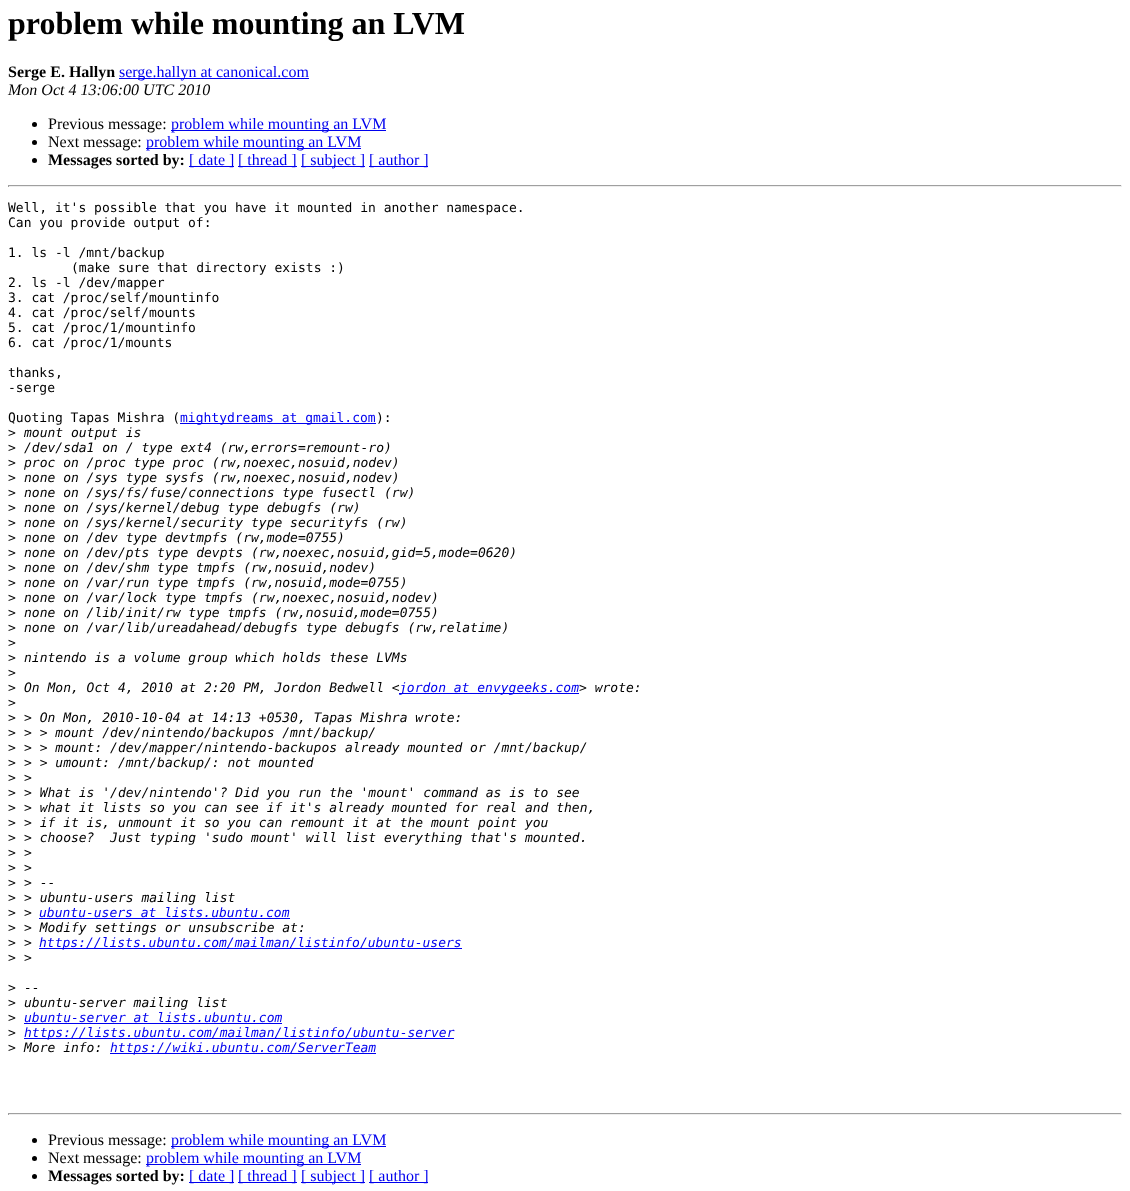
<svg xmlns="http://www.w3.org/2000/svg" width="1130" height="1191">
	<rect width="100%" height="100%" fill="#FFFFFF" />
	<text x="8" y="34" font-family="Liberation Serif" font-size="32" font-weight="700" fill="#000000">problem while mounting an LVM</text>
	<text x="8" y="77" font-family="Liberation Serif" font-size="16" font-weight="700" fill="#000000">Serge E. Hallyn</text>
	<rect x="119" y="78" width="190" height="1" fill="#0000EE" />
	<text x="119" y="77" font-family="Liberation Serif" font-size="16" fill="#0000EE">serge.hallyn at canonical.com</text>
	<text x="8" y="95" font-family="Liberation Serif" font-size="16" font-style="italic" fill="#000000">Mon Oct 4 13:06:00 UTC 2010</text>
	<circle cx="34.5" cy="124.5" r="2.5" fill="#000000" />
	<text x="48" y="129" font-family="Liberation Serif" font-size="16" fill="#000000">Previous message:</text>
	<rect x="171" y="130" width="215" height="1" fill="#0000EE" />
	<text x="171" y="129" font-family="Liberation Serif" font-size="16" fill="#0000EE">problem while mounting an LVM</text>
	<circle cx="34.5" cy="142.5" r="2.5" fill="#000000" />
	<text x="48" y="147" font-family="Liberation Serif" font-size="16" fill="#000000">Next message:</text>
	<rect x="146" y="148" width="215" height="1" fill="#0000EE" />
	<text x="146" y="147" font-family="Liberation Serif" font-size="16" fill="#0000EE">problem while mounting an LVM</text>
	<circle cx="34.5" cy="160.5" r="2.5" fill="#000000" />
	<text x="48" y="165" font-family="Liberation Serif" font-size="16" font-weight="700" fill="#000000">Messages sorted by:</text>
	<rect x="189" y="166" width="45" height="1" fill="#0000EE" />
	<text x="189" y="165" font-family="Liberation Serif" font-size="16" fill="#0000EE">[ date ]</text>
	<rect x="238" y="166" width="59" height="1" fill="#0000EE" />
	<text x="238" y="165" font-family="Liberation Serif" font-size="16" fill="#0000EE">[ thread ]</text>
	<rect x="301" y="166" width="64" height="1" fill="#0000EE" />
	<text x="301" y="165" font-family="Liberation Serif" font-size="16" fill="#0000EE">[ subject ]</text>
	<rect x="369" y="166" width="59" height="1" fill="#0000EE" />
	<text x="369" y="165" font-family="Liberation Serif" font-size="16" fill="#0000EE">[ author ]</text>
	<rect x="8" y="185" width="1114" height="1" fill="#9F9F9F" />
	<rect x="1121" y="185" width="1" height="2" fill="#EEEEEE" />
	<rect x="8" y="186" width="1114" height="1" fill="#EEEEEE" />
	<rect x="8" y="185" width="1" height="2" fill="#9F9F9F" />
	<g font-family="DejaVu Sans Mono" font-size="13" fill="#000000">
		<text x="8" y="212">Well, it's possible that you have it mounted in another namespace.</text>
		<text x="8" y="227">Can you provide output of:</text>
		<text x="8" y="257">1. ls -l /mnt/backup</text>
		<text x="71" y="272">(make sure that directory exists :)</text>
		<text x="8" y="287">2. ls -l /dev/mapper</text>
		<text x="8" y="302">3. cat /proc/self/mountinfo</text>
		<text x="8" y="317">4. cat /proc/self/mounts</text>
		<text x="8" y="332">5. cat /proc/1/mountinfo</text>
		<text x="8" y="347">6. cat /proc/1/mounts</text>
		<text x="8" y="377">thanks,</text>
		<text x="8" y="392">-serge</text>
		<text x="8" y="422">Quoting Tapas Mishra (</text>
	</g>
	<rect x="180" y="423" width="196" height="1" fill="#0000EE" />
	<text x="180" y="422" font-family="DejaVu Sans Mono" font-size="13" fill="#0000EE">mightydreams at gmail.com</text>
	<g font-family="DejaVu Sans Mono" font-size="13" fill="#000000">
		<text x="376" y="422">):</text>
		<text x="8" y="437">&gt;</text>
	</g>
	<text x="24" y="437" font-family="DejaVu Sans Mono" font-size="13" font-style="italic" fill="#000000">mount output is</text>
	<text x="8" y="452" font-family="DejaVu Sans Mono" font-size="13" fill="#000000">&gt;</text>
	<text x="24" y="452" font-family="DejaVu Sans Mono" font-size="13" font-style="italic" fill="#000000">/dev/sda1 on / type ext4 (rw,errors=remount-ro)</text>
	<text x="8" y="467" font-family="DejaVu Sans Mono" font-size="13" fill="#000000">&gt;</text>
	<text x="24" y="467" font-family="DejaVu Sans Mono" font-size="13" font-style="italic" fill="#000000">proc on /proc type proc (rw,noexec,nosuid,nodev)</text>
	<text x="8" y="482" font-family="DejaVu Sans Mono" font-size="13" fill="#000000">&gt;</text>
	<text x="24" y="482" font-family="DejaVu Sans Mono" font-size="13" font-style="italic" fill="#000000">none on /sys type sysfs (rw,noexec,nosuid,nodev)</text>
	<text x="8" y="497" font-family="DejaVu Sans Mono" font-size="13" fill="#000000">&gt;</text>
	<text x="24" y="497" font-family="DejaVu Sans Mono" font-size="13" font-style="italic" fill="#000000">none on /sys/fs/fuse/connections type fusectl (rw)</text>
	<text x="8" y="512" font-family="DejaVu Sans Mono" font-size="13" fill="#000000">&gt;</text>
	<text x="24" y="512" font-family="DejaVu Sans Mono" font-size="13" font-style="italic" fill="#000000">none on /sys/kernel/debug type debugfs (rw)</text>
	<text x="8" y="527" font-family="DejaVu Sans Mono" font-size="13" fill="#000000">&gt;</text>
	<text x="24" y="527" font-family="DejaVu Sans Mono" font-size="13" font-style="italic" fill="#000000">none on /sys/kernel/security type securityfs (rw)</text>
	<text x="8" y="542" font-family="DejaVu Sans Mono" font-size="13" fill="#000000">&gt;</text>
	<text x="24" y="542" font-family="DejaVu Sans Mono" font-size="13" font-style="italic" fill="#000000">none on /dev type devtmpfs (rw,mode=0755)</text>
	<text x="8" y="557" font-family="DejaVu Sans Mono" font-size="13" fill="#000000">&gt;</text>
	<text x="24" y="557" font-family="DejaVu Sans Mono" font-size="13" font-style="italic" fill="#000000">none on /dev/pts type devpts (rw,noexec,nosuid,gid=5,mode=0620)</text>
	<text x="8" y="572" font-family="DejaVu Sans Mono" font-size="13" fill="#000000">&gt;</text>
	<text x="24" y="572" font-family="DejaVu Sans Mono" font-size="13" font-style="italic" fill="#000000">none on /dev/shm type tmpfs (rw,nosuid,nodev)</text>
	<text x="8" y="587" font-family="DejaVu Sans Mono" font-size="13" fill="#000000">&gt;</text>
	<text x="24" y="587" font-family="DejaVu Sans Mono" font-size="13" font-style="italic" fill="#000000">none on /var/run type tmpfs (rw,nosuid,mode=0755)</text>
	<text x="8" y="602" font-family="DejaVu Sans Mono" font-size="13" fill="#000000">&gt;</text>
	<text x="24" y="602" font-family="DejaVu Sans Mono" font-size="13" font-style="italic" fill="#000000">none on /var/lock type tmpfs (rw,noexec,nosuid,nodev)</text>
	<text x="8" y="617" font-family="DejaVu Sans Mono" font-size="13" fill="#000000">&gt;</text>
	<text x="24" y="617" font-family="DejaVu Sans Mono" font-size="13" font-style="italic" fill="#000000">none on /lib/init/rw type tmpfs (rw,nosuid,mode=0755)</text>
	<text x="8" y="632" font-family="DejaVu Sans Mono" font-size="13" fill="#000000">&gt;</text>
	<text x="24" y="632" font-family="DejaVu Sans Mono" font-size="13" font-style="italic" fill="#000000">none on /var/lib/ureadahead/debugfs type debugfs (rw,relatime)</text>
	<g font-family="DejaVu Sans Mono" font-size="13" fill="#000000">
		<text x="8" y="647">&gt;</text>
		<text x="8" y="662">&gt;</text>
	</g>
	<text x="24" y="662" font-family="DejaVu Sans Mono" font-size="13" font-style="italic" fill="#000000">nintendo is a volume group which holds these LVMs</text>
	<g font-family="DejaVu Sans Mono" font-size="13" fill="#000000">
		<text x="8" y="677">&gt;</text>
		<text x="8" y="692">&gt;</text>
	</g>
	<text x="24" y="692" font-family="DejaVu Sans Mono" font-size="13" font-style="italic" fill="#000000">On Mon, Oct 4, 2010 at 2:20 PM, Jordon Bedwell &lt;</text>
	<rect x="399" y="693" width="180" height="1" fill="#0000EE" />
	<text x="399" y="692" font-family="DejaVu Sans Mono" font-size="13" font-style="italic" fill="#0000EE">jordon at envygeeks.com</text>
	<text x="579" y="692" font-family="DejaVu Sans Mono" font-size="13" font-style="italic" fill="#000000">&gt; wrote:</text>
	<g font-family="DejaVu Sans Mono" font-size="13" fill="#000000">
		<text x="8" y="707">&gt;</text>
		<text x="8" y="722">&gt;</text>
	</g>
	<text x="24" y="722" font-family="DejaVu Sans Mono" font-size="13" font-style="italic" fill="#000000">&gt; On Mon, 2010-10-04 at 14:13 +0530, Tapas Mishra wrote:</text>
	<text x="8" y="737" font-family="DejaVu Sans Mono" font-size="13" fill="#000000">&gt;</text>
	<text x="24" y="737" font-family="DejaVu Sans Mono" font-size="13" font-style="italic" fill="#000000">&gt; &gt; mount /dev/nintendo/backupos /mnt/backup/</text>
	<text x="8" y="752" font-family="DejaVu Sans Mono" font-size="13" fill="#000000">&gt;</text>
	<text x="24" y="752" font-family="DejaVu Sans Mono" font-size="13" font-style="italic" fill="#000000">&gt; &gt; mount: /dev/mapper/nintendo-backupos already mounted or /mnt/backup/</text>
	<text x="8" y="767" font-family="DejaVu Sans Mono" font-size="13" fill="#000000">&gt;</text>
	<text x="24" y="767" font-family="DejaVu Sans Mono" font-size="13" font-style="italic" fill="#000000">&gt; &gt; umount: /mnt/backup/: not mounted</text>
	<text x="8" y="782" font-family="DejaVu Sans Mono" font-size="13" fill="#000000">&gt;</text>
	<text x="24" y="782" font-family="DejaVu Sans Mono" font-size="13" font-style="italic" fill="#000000">&gt;</text>
	<text x="8" y="797" font-family="DejaVu Sans Mono" font-size="13" fill="#000000">&gt;</text>
	<text x="24" y="797" font-family="DejaVu Sans Mono" font-size="13" font-style="italic" fill="#000000">&gt; What is '/dev/nintendo'? Did you run the 'mount' command as is to see</text>
	<text x="8" y="812" font-family="DejaVu Sans Mono" font-size="13" fill="#000000">&gt;</text>
	<text x="24" y="812" font-family="DejaVu Sans Mono" font-size="13" font-style="italic" fill="#000000">&gt; what it lists so you can see if it's already mounted for real and then,</text>
	<text x="8" y="827" font-family="DejaVu Sans Mono" font-size="13" fill="#000000">&gt;</text>
	<text x="24" y="827" font-family="DejaVu Sans Mono" font-size="13" font-style="italic" fill="#000000">&gt; if it is, unmount it so you can remount it at the mount point you</text>
	<text x="8" y="842" font-family="DejaVu Sans Mono" font-size="13" fill="#000000">&gt;</text>
	<text x="24" y="842" font-family="DejaVu Sans Mono" font-size="13" font-style="italic" fill="#000000" xml:space="preserve">&gt; choose?  Just typing 'sudo mount' will list everything that's mounted.</text>
	<text x="8" y="857" font-family="DejaVu Sans Mono" font-size="13" fill="#000000">&gt;</text>
	<text x="24" y="857" font-family="DejaVu Sans Mono" font-size="13" font-style="italic" fill="#000000">&gt;</text>
	<text x="8" y="872" font-family="DejaVu Sans Mono" font-size="13" fill="#000000">&gt;</text>
	<text x="24" y="872" font-family="DejaVu Sans Mono" font-size="13" font-style="italic" fill="#000000">&gt;</text>
	<text x="8" y="887" font-family="DejaVu Sans Mono" font-size="13" fill="#000000">&gt;</text>
	<text x="24" y="887" font-family="DejaVu Sans Mono" font-size="13" font-style="italic" fill="#000000">&gt; --</text>
	<text x="8" y="902" font-family="DejaVu Sans Mono" font-size="13" fill="#000000">&gt;</text>
	<text x="24" y="902" font-family="DejaVu Sans Mono" font-size="13" font-style="italic" fill="#000000">&gt; ubuntu-users mailing list</text>
	<text x="8" y="917" font-family="DejaVu Sans Mono" font-size="13" fill="#000000">&gt;</text>
	<text x="24" y="917" font-family="DejaVu Sans Mono" font-size="13" font-style="italic" fill="#000000">&gt;</text>
	<text x="39" y="917" font-family="DejaVu Sans Mono" font-size="13" font-style="italic" fill="#0000EE">ubuntu-users at lists.ubuntu.com</text>
	<rect x="39" y="918" width="251" height="1" fill="#0000EE" />
	<text x="8" y="932" font-family="DejaVu Sans Mono" font-size="13" fill="#000000">&gt;</text>
	<text x="24" y="932" font-family="DejaVu Sans Mono" font-size="13" font-style="italic" fill="#000000">&gt; Modify settings or unsubscribe at:</text>
	<text x="8" y="947" font-family="DejaVu Sans Mono" font-size="13" fill="#000000">&gt;</text>
	<text x="24" y="947" font-family="DejaVu Sans Mono" font-size="13" font-style="italic" fill="#000000">&gt;</text>
	<rect x="39" y="948" width="423" height="1" fill="#0000EE" />
	<text x="39" y="947" font-family="DejaVu Sans Mono" font-size="13" font-style="italic" fill="#0000EE">https://lists.ubuntu.com/mailman/listinfo/ubuntu-users</text>
	<text x="8" y="962" font-family="DejaVu Sans Mono" font-size="13" fill="#000000">&gt;</text>
	<text x="24" y="962" font-family="DejaVu Sans Mono" font-size="13" font-style="italic" fill="#000000">&gt;</text>
	<text x="8" y="992" font-family="DejaVu Sans Mono" font-size="13" fill="#000000">&gt;</text>
	<text x="24" y="992" font-family="DejaVu Sans Mono" font-size="13" font-style="italic" fill="#000000">--</text>
	<text x="8" y="1007" font-family="DejaVu Sans Mono" font-size="13" fill="#000000">&gt;</text>
	<text x="24" y="1007" font-family="DejaVu Sans Mono" font-size="13" font-style="italic" fill="#000000">ubuntu-server mailing list</text>
	<text x="8" y="1022" font-family="DejaVu Sans Mono" font-size="13" fill="#000000">&gt;</text>
	<text x="24" y="1022" font-family="DejaVu Sans Mono" font-size="13" font-style="italic" fill="#0000EE">ubuntu-server at lists.ubuntu.com</text>
	<rect x="24" y="1023" width="258" height="1" fill="#0000EE" />
	<text x="8" y="1037" font-family="DejaVu Sans Mono" font-size="13" fill="#000000">&gt;</text>
	<rect x="24" y="1038" width="430" height="1" fill="#0000EE" />
	<text x="24" y="1037" font-family="DejaVu Sans Mono" font-size="13" font-style="italic" fill="#0000EE">https://lists.ubuntu.com/mailman/listinfo/ubuntu-server</text>
	<text x="8" y="1052" font-family="DejaVu Sans Mono" font-size="13" fill="#000000">&gt;</text>
	<text x="24" y="1052" font-family="DejaVu Sans Mono" font-size="13" font-style="italic" fill="#000000">More info:</text>
	<rect x="110" y="1053" width="266" height="1" fill="#0000EE" />
	<text x="110" y="1052" font-family="DejaVu Sans Mono" font-size="13" font-style="italic" fill="#0000EE">https://wiki.ubuntu.com/ServerTeam</text>
	<rect x="8" y="1113" width="1114" height="1" fill="#9F9F9F" />
	<rect x="1121" y="1113" width="1" height="2" fill="#EEEEEE" />
	<rect x="8" y="1114" width="1114" height="1" fill="#EEEEEE" />
	<rect x="8" y="1113" width="1" height="2" fill="#9F9F9F" />
	<circle cx="34.5" cy="1140.5" r="2.5" fill="#000000" />
	<text x="48" y="1145" font-family="Liberation Serif" font-size="16" fill="#000000">Previous message:</text>
	<rect x="171" y="1146" width="215" height="1" fill="#0000EE" />
	<text x="171" y="1145" font-family="Liberation Serif" font-size="16" fill="#0000EE">problem while mounting an LVM</text>
	<circle cx="34.5" cy="1158.5" r="2.5" fill="#000000" />
	<text x="48" y="1163" font-family="Liberation Serif" font-size="16" fill="#000000">Next message:</text>
	<rect x="146" y="1164" width="215" height="1" fill="#0000EE" />
	<text x="146" y="1163" font-family="Liberation Serif" font-size="16" fill="#0000EE">problem while mounting an LVM</text>
	<circle cx="34.5" cy="1176.5" r="2.5" fill="#000000" />
	<text x="48" y="1181" font-family="Liberation Serif" font-size="16" font-weight="700" fill="#000000">Messages sorted by:</text>
	<rect x="189" y="1182" width="45" height="1" fill="#0000EE" />
	<text x="189" y="1181" font-family="Liberation Serif" font-size="16" fill="#0000EE">[ date ]</text>
	<rect x="238" y="1182" width="59" height="1" fill="#0000EE" />
	<text x="238" y="1181" font-family="Liberation Serif" font-size="16" fill="#0000EE">[ thread ]</text>
	<rect x="301" y="1182" width="64" height="1" fill="#0000EE" />
	<text x="301" y="1181" font-family="Liberation Serif" font-size="16" fill="#0000EE">[ subject ]</text>
	<rect x="369" y="1182" width="59" height="1" fill="#0000EE" />
	<text x="369" y="1181" font-family="Liberation Serif" font-size="16" fill="#0000EE">[ author ]</text>
</svg>
